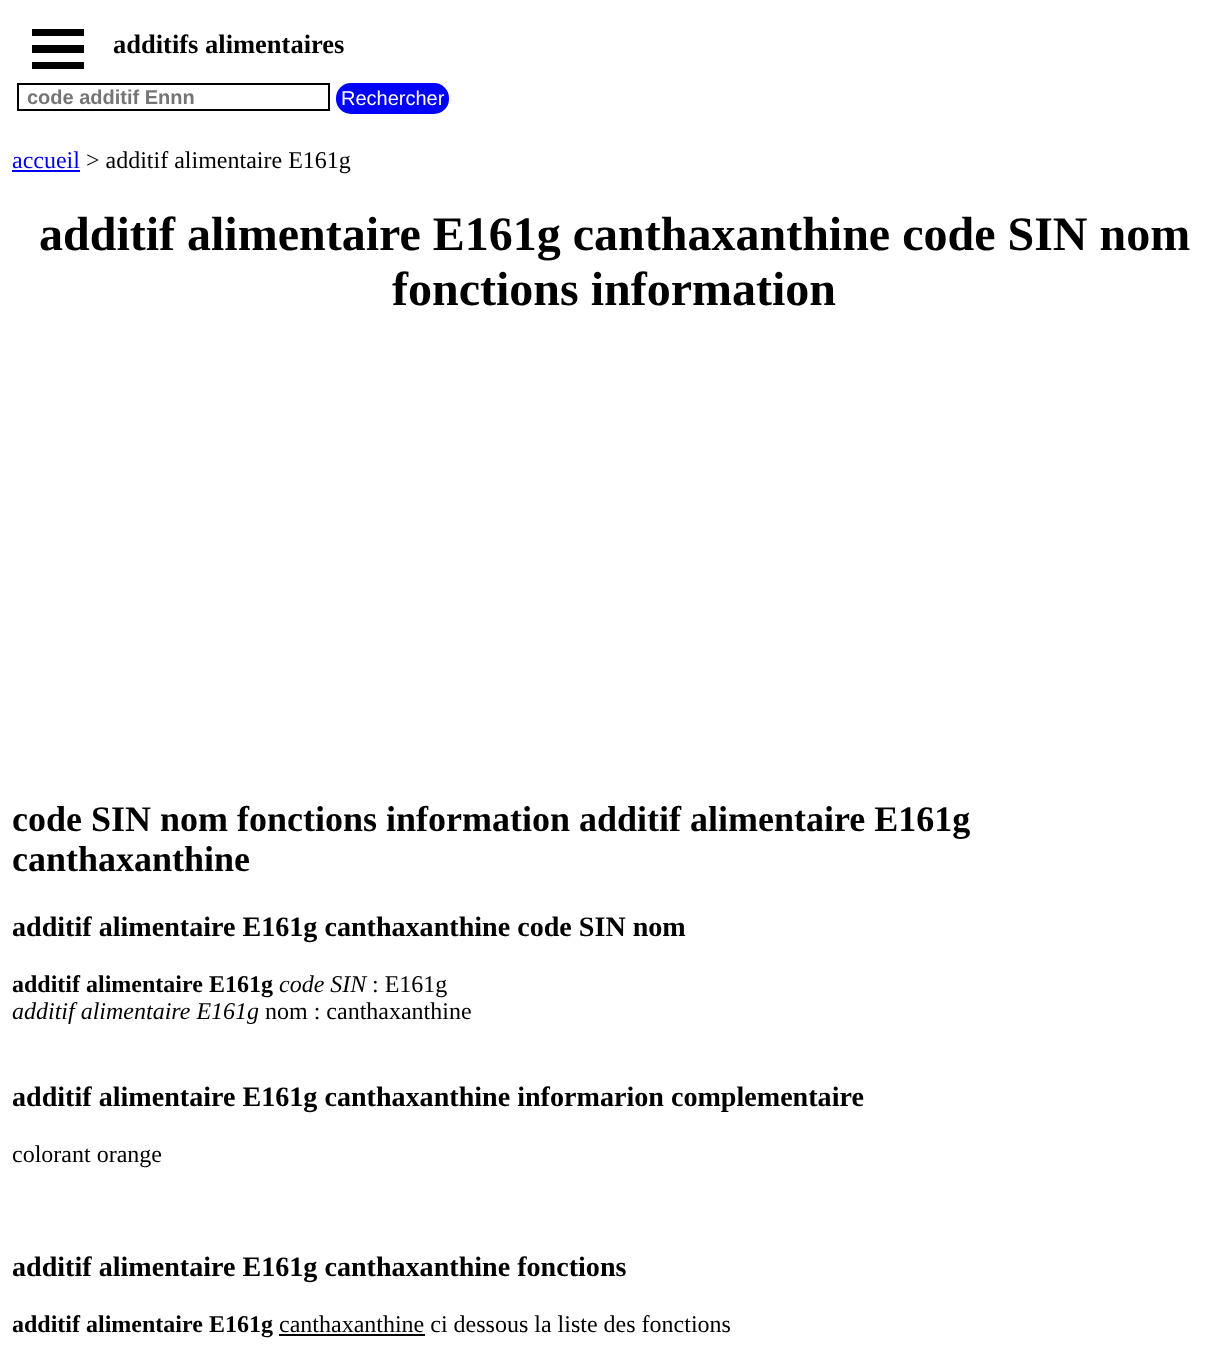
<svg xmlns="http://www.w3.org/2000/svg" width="1228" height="1360">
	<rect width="100%" height="100%" fill="#FFFFFF" />
	<rect x="32" y="29" width="52" height="7" fill="#000000" />
	<rect x="32" y="45" width="52" height="8" fill="#000000" />
	<rect x="32" y="62" width="52" height="7" fill="#000000" />
	<text x="113" y="53" font-family="Liberation Serif" font-size="26.5" font-weight="700" fill="#000000">additifs alimentaires</text>
	<rect x="18" y="84" width="311" height="26" fill="none" stroke="#000000" stroke-width="2" />
	<text x="27" y="104" font-family="Liberation Sans" font-size="20" font-weight="700" fill="#757575">code additif Ennn</text>
	<rect x="336" y="83" width="113" height="31" rx="15" fill="#0000FF" />
	<text x="341" y="105" font-family="Liberation Sans" font-size="20" fill="#FFFFFF">Rechercher</text>
	<text x="12" y="168" font-family="Liberation Serif" font-size="24" fill="#0000EE">accueil</text>
	<rect x="12" y="170" width="68" height="2" fill="#0000EE" />
	<text x="86" y="168" font-family="Liberation Serif" font-size="24" fill="#000000">&gt; additif alimentaire E161g</text>
	<g font-family="Liberation Serif" font-size="48" font-weight="700" fill="#000000">
		<text x="39" y="250">additif alimentaire E161g canthaxanthine code SIN nom</text>
		<text x="392" y="305">fonctions information</text>
	</g>
	<g font-family="Liberation Serif" font-size="36" font-weight="700" fill="#000000">
		<text x="12" y="831">code SIN nom fonctions information additif alimentaire E161g</text>
		<text x="12" y="871">canthaxanthine</text>
	</g>
	<text x="12" y="936" font-family="Liberation Serif" font-size="28.1" font-weight="700" fill="#000000">additif alimentaire E161g canthaxanthine code SIN nom</text>
	<text x="12" y="992" font-family="Liberation Serif" font-size="24" font-weight="700" fill="#000000">additif alimentaire E161g</text>
	<text x="279" y="992" font-family="Liberation Serif" font-size="24" font-style="italic" fill="#000000">code SIN</text>
	<text x="372" y="992" font-family="Liberation Serif" font-size="24" fill="#000000">: E161g</text>
	<text x="12" y="1019" font-family="Liberation Serif" font-size="24" font-style="italic" fill="#000000">additif alimentaire E161g</text>
	<text x="265" y="1019" font-family="Liberation Serif" font-size="24" fill="#000000">nom : canthaxanthine</text>
	<text x="12" y="1106" font-family="Liberation Serif" font-size="28.1" font-weight="700" fill="#000000">additif alimentaire E161g canthaxanthine informarion complementaire</text>
	<text x="12" y="1162" font-family="Liberation Serif" font-size="24" fill="#000000">colorant orange</text>
	<text x="12" y="1276" font-family="Liberation Serif" font-size="28.1" font-weight="700" fill="#000000">additif alimentaire E161g canthaxanthine fonctions</text>
	<text x="12" y="1332" font-family="Liberation Serif" font-size="24" font-weight="700" fill="#000000">additif alimentaire E161g</text>
	<text x="279" y="1332" font-family="Liberation Serif" font-size="24" fill="#000000">canthaxanthine ci dessous la liste des fonctions</text>
	<rect x="279" y="1334" width="146" height="2" fill="#000000" />
</svg>
